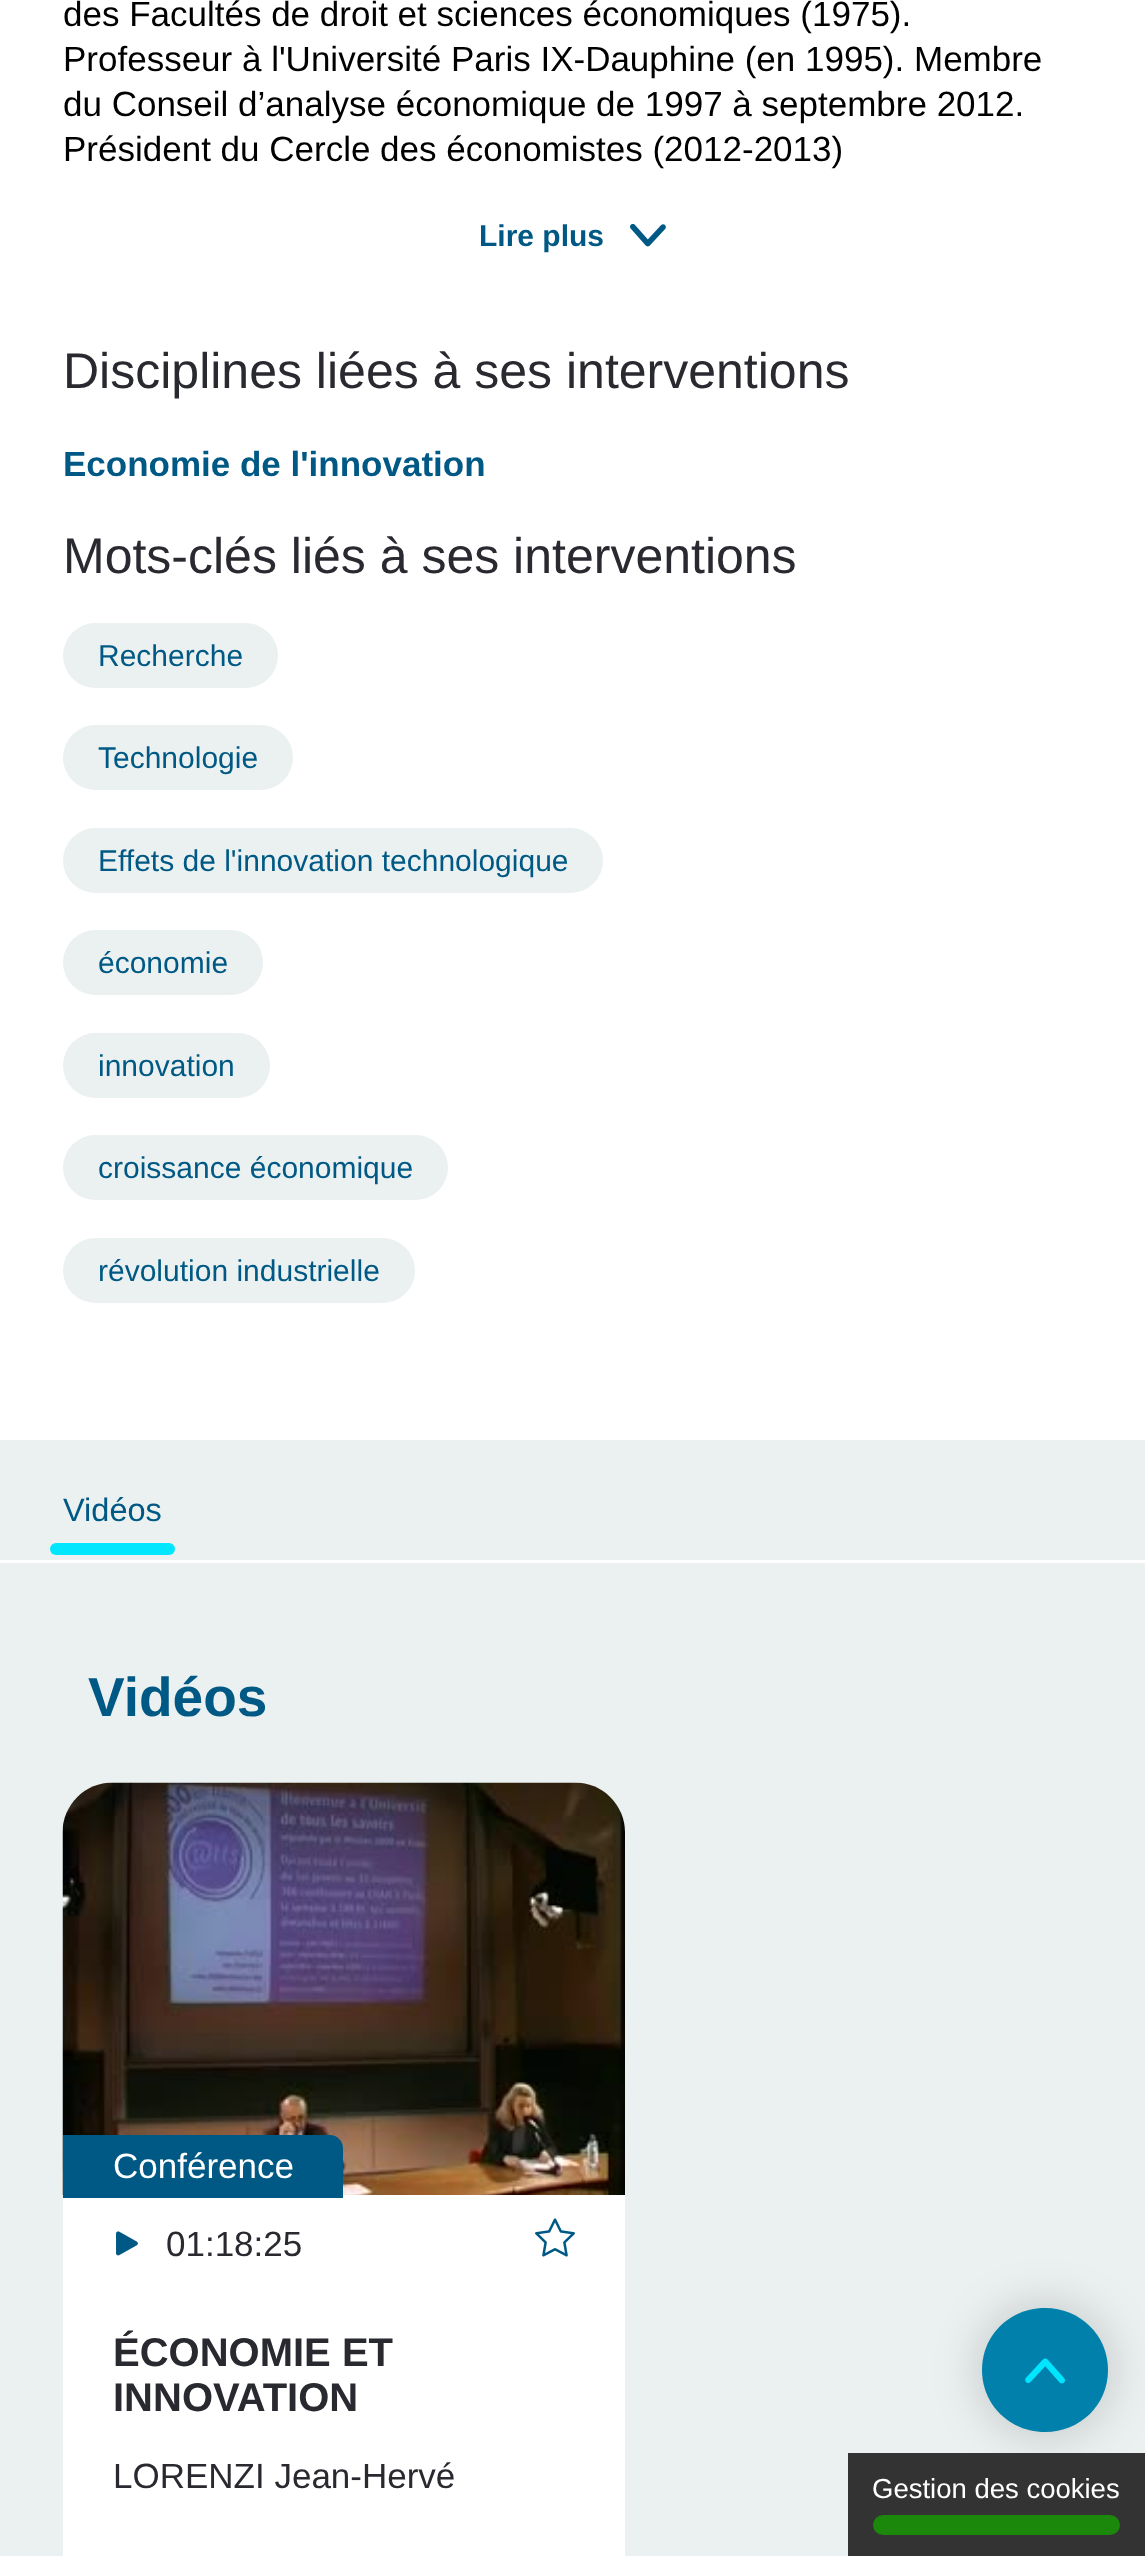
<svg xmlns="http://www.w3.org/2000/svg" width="1145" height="2556">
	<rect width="100%" height="100%" fill="#EBF0F0" />
	<rect x="0" y="0" width="1145" height="1440" fill="#FFFFFF" />
	<g font-family="Liberation Sans" font-size="35" fill="#000000">
		<text x="63" y="26">des Facultés de droit et sciences économiques (1975).</text>
		<text x="63" y="71">Professeur à l'Université Paris IX-Dauphine (en 1995). Membre</text>
		<text x="63" y="116">du Conseil d’analyse économique de 1997 à septembre 2012.</text>
		<text x="63" y="161">Président du Cercle des économistes (2012-2013)</text>
	</g>
	<text x="479" y="246" font-family="Liberation Sans" font-size="30" font-weight="700" fill="#005984">Lire plus</text>
	<image x="630" y="223" width="36" height="24" href="assets/img1.png" />
	<text x="63" y="388" font-family="Liberation Sans" font-size="50" fill="#292930">Disciplines liées à ses interventions</text>
	<text x="63" y="476" font-family="Liberation Sans" font-size="35" font-weight="700" fill="#005984">Economie de l'innovation</text>
	<text x="63" y="573" font-family="Liberation Sans" font-size="50" fill="#292930">Mots-clés liés à ses interventions</text>
	<rect x="63" y="623" width="215" height="65" rx="32.5" fill="#EBF0F0" />
	<text x="98" y="666" font-family="Liberation Sans" font-size="30" fill="#005984">Recherche</text>
	<rect x="63" y="725" width="230" height="65" rx="32.5" fill="#EBF0F0" />
	<text x="98" y="768" font-family="Liberation Sans" font-size="30" fill="#005984">Technologie</text>
	<rect x="63" y="828" width="540" height="65" rx="32.5" fill="#EBF0F0" />
	<text x="98" y="871" font-family="Liberation Sans" font-size="30" fill="#005984">Effets de l'innovation technologique</text>
	<rect x="63" y="930" width="200" height="65" rx="32.5" fill="#EBF0F0" />
	<text x="98" y="973" font-family="Liberation Sans" font-size="30" fill="#005984">économie</text>
	<rect x="63" y="1033" width="207" height="65" rx="32.5" fill="#EBF0F0" />
	<text x="98" y="1076" font-family="Liberation Sans" font-size="30" fill="#005984">innovation</text>
	<rect x="63" y="1135" width="385" height="65" rx="32.5" fill="#EBF0F0" />
	<text x="98" y="1178" font-family="Liberation Sans" font-size="30" fill="#005984">croissance économique</text>
	<rect x="63" y="1238" width="352" height="65" rx="32.5" fill="#EBF0F0" />
	<text x="98" y="1281" font-family="Liberation Sans" font-size="30" fill="#005984">révolution industrielle</text>
	<rect x="0" y="1560" width="1145" height="3" fill="#FFFFFF" />
	<text x="63" y="1521" font-family="Liberation Sans" font-size="32.5" fill="#005984">Vidéos</text>
	<rect x="50" y="1543" width="125" height="12" rx="6" fill="#00E6FF" />
	<text x="88" y="1716" font-family="Liberation Sans" font-size="55" font-weight="700" fill="#005984">Vidéos</text>
	<rect x="63" y="1783" width="562" height="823" rx="50" fill="#FFFFFF" />
	<image x="62" y="1782" width="563" height="413" href="assets/img2.png" />
	<path d="M63 2135H330C337 2135 343 2141 343 2148V2198H63Z" fill="#005984" />
	<text x="113" y="2178" font-family="Liberation Sans" font-size="35" fill="#FFFFFF">Conférence</text>
	<image x="116" y="2231" width="22" height="25" href="assets/img3.png" />
	<text x="166" y="2256" font-family="Liberation Sans" font-size="35" fill="#292930">01:18:25</text>
	<image x="535" y="2218" width="40" height="39" href="assets/img4.png" />
	<g font-family="Liberation Sans" font-size="40" font-weight="700" fill="#292930">
		<text x="113" y="2366">ÉCONOMIE ET</text>
		<text x="113" y="2411">INNOVATION</text>
	</g>
	<text x="113" y="2488" font-family="Liberation Sans" font-size="35" fill="#292930">LORENZI Jean-Hervé</text>
	<rect x="983" y="2308" width="125" height="125" rx="62.5" fill="#000000" fill-opacity="0.2" filter="blur(25px)" />
	<path d="M1045 2432C1010 2432 982 2405 982 2370C982 2335 1010 2308 1045 2308C1080 2308 1108 2335 1108 2370C1108 2405 1080 2432 1045 2432Z" fill="#0080AB" />
	<image x="1025" y="2358" width="40" height="26" href="assets/img5.png" />
	<rect x="848" y="2453" width="297" height="103" fill="#333333" />
	<text x="872" y="2498" font-family="Liberation Sans" font-size="27.5" fill="#FFFFFF">Gestion des cookies</text>
	<rect x="873" y="2515" width="247" height="20" rx="10" fill="#1B870B" />
</svg>
